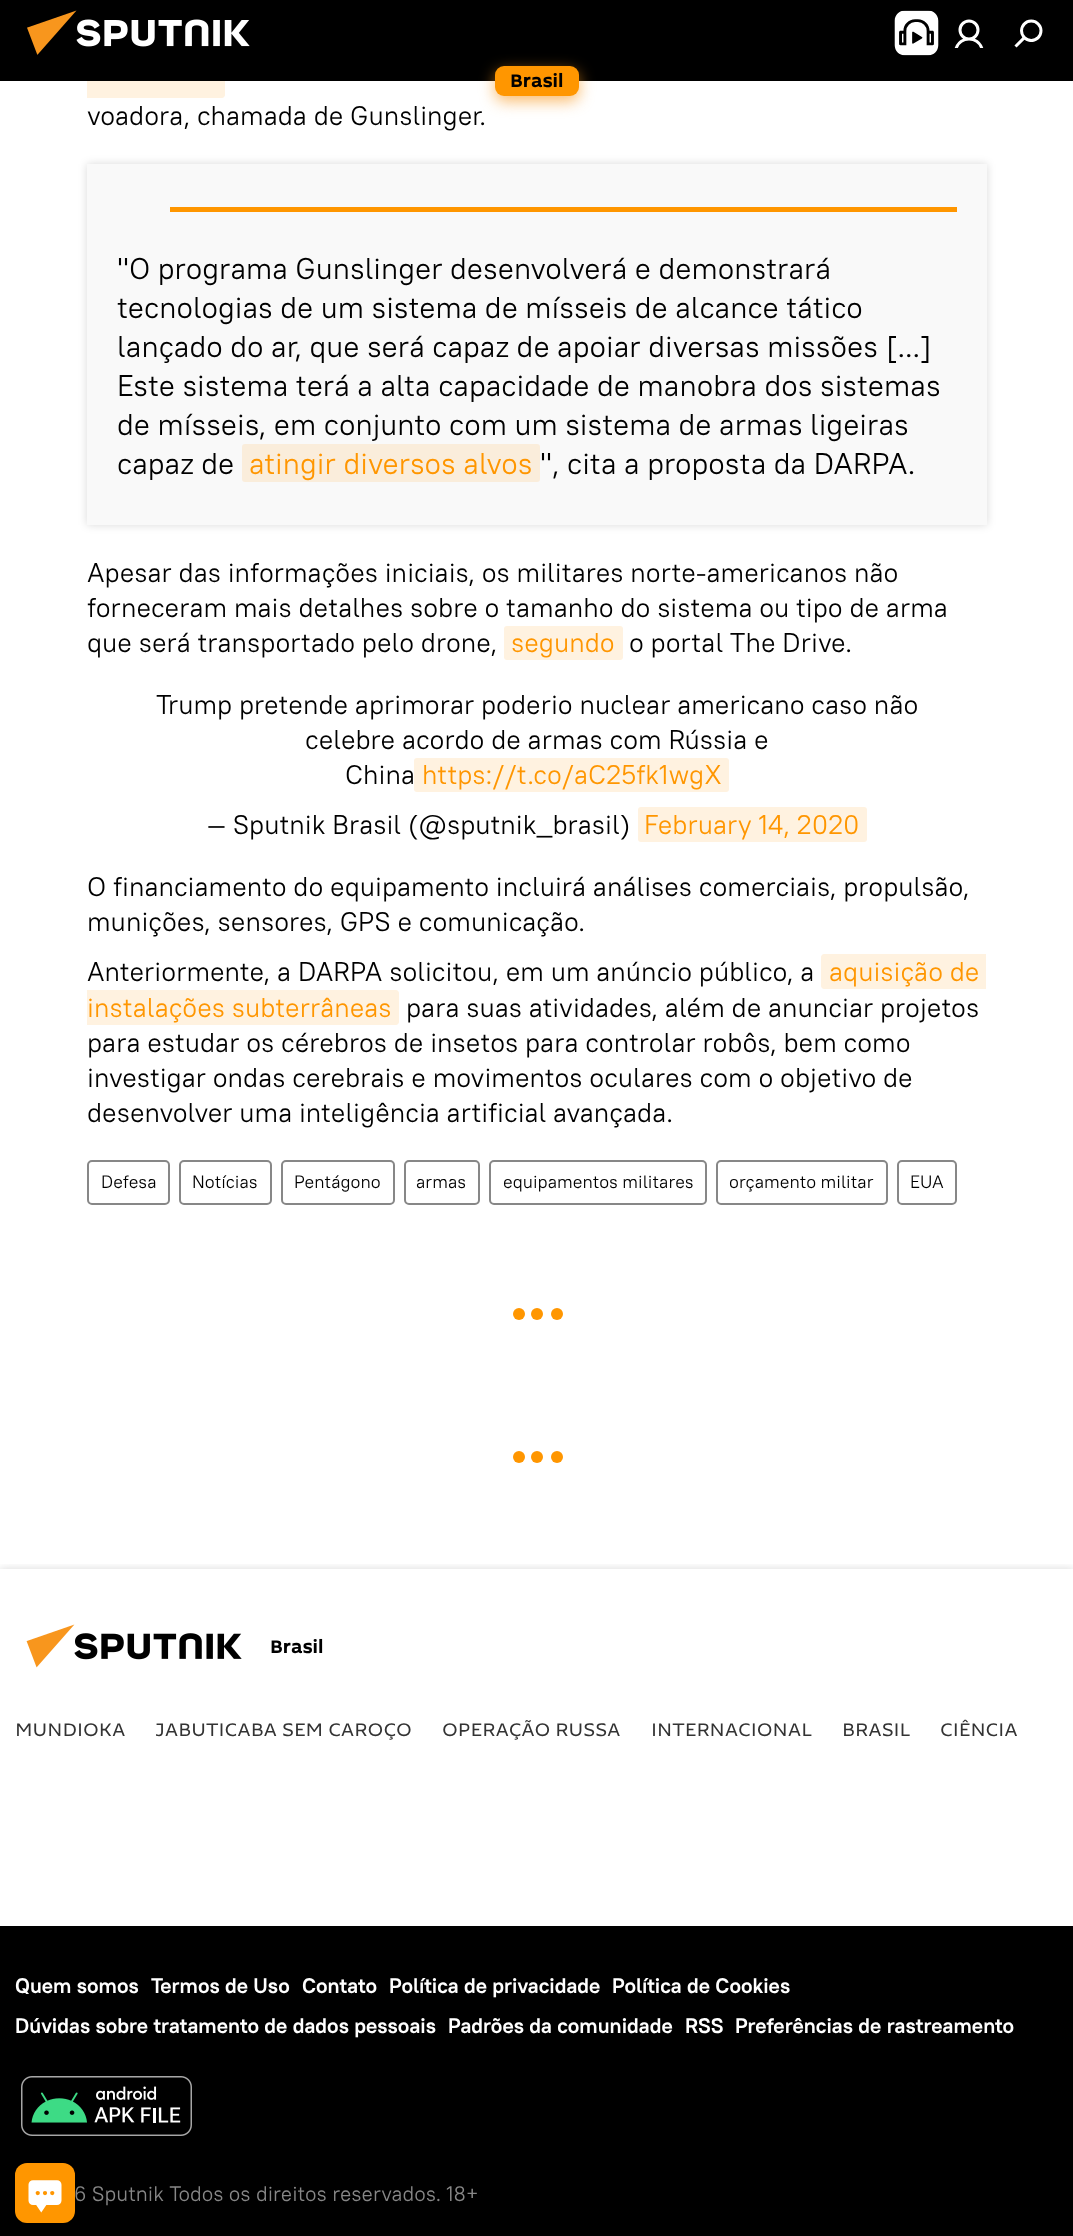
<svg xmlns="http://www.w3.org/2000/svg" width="1073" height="2236">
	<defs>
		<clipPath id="clip1"><rect x="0" y="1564" width="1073" height="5" /></clipPath>
	</defs>
	<rect width="100%" height="100%" fill="#FFFFFF" />
	<path d="M87 63H222C223.5 63 225 64.5 225 66V95C225 96.5 223.5 98 222 98H87Z" fill="#FFF2E0" />
	<rect x="0" y="0" width="1073" height="81" fill="#000000" />
	<image x="894" y="10" width="45" height="46" href="assets/img1.png" />
	<image x="954" y="19" width="30" height="29" href="assets/img2.png" />
	<image x="1014" y="19" width="29" height="29" href="assets/img3.png" />
	<image x="27" y="10" width="223" height="45" href="assets/img4.png" />
	<rect x="495" y="71" width="84" height="30" rx="9" fill="#F8961D" fill-opacity="0.66" filter="blur(7.5px)" />
	<rect x="495" y="66" width="84" height="30" rx="9" fill="#FF9600" />
	<text x="510" y="87" font-family="'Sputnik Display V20'" font-size="18" font-weight="700" fill="#000000">Brasil</text>
	<text x="87" y="125" font-family="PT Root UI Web" font-size="27" fill="#000000">voadora, chamada de Gunslinger.</text>
	<rect x="87" y="164" width="900" height="361" fill="#000000" fill-opacity="0.15" filter="blur(4.5px)" />
	<rect x="87" y="164" width="900" height="361" fill="#F9F9F9" />
	<rect x="170" y="207" width="787" height="5" fill="#FF9600" />
	<g font-family="PT Root UI Web" font-size="30" fill="#000000">
		<text x="117" y="279">"O programa Gunslinger desenvolverá e demonstrará</text>
		<text x="117" y="318">tecnologias de um sistema de mísseis de alcance tático</text>
		<text x="117" y="357">lançado do ar, que será capaz de apoiar diversas missões [...]</text>
		<text x="117" y="396">Este sistema terá a alta capacidade de manobra dos sistemas</text>
		<text x="117" y="435">de mísseis, em conjunto com um sistema de armas ligeiras</text>
		<text x="117" y="474">capaz de</text>
	</g>
	<rect x="242" y="444" width="298" height="38" rx="3" fill="#FAEDDB" />
	<text x="249" y="474" font-family="PT Root UI Web" font-size="30" fill="#FF9600">atingir diversos alvos</text>
	<text x="540" y="474" font-family="PT Root UI Web" font-size="30" fill="#000000">", cita a proposta da DARPA.</text>
	<g font-family="PT Root UI Web" font-size="27" fill="#000000">
		<text x="87" y="582">Apesar das informações iniciais, os militares norte-americanos não</text>
		<text x="87" y="617">forneceram mais detalhes sobre o tamanho do sistema ou tipo de arma</text>
		<text x="87" y="652">que será transportado pelo drone,</text>
	</g>
	<rect x="504" y="626" width="119" height="34" rx="3" fill="#FFF2E0" />
	<text x="511" y="652" font-family="PT Root UI Web" font-size="27" fill="#FF9600">segundo</text>
	<g font-family="PT Root UI Web" font-size="27" fill="#000000">
		<text x="629" y="652">o portal The Drive.</text>
		<text x="156" y="714">Trump pretende aprimorar poderio nuclear americano caso não</text>
		<text x="305" y="749">celebre acordo de armas com Rússia e</text>
		<text x="345" y="784">China</text>
	</g>
	<rect x="414" y="758" width="315" height="34" rx="3" fill="#FFF2E0" />
	<text x="422" y="784" font-family="PT Root UI Web" font-size="27" fill="#FF9600">https://t.co/aC25fk1wgX</text>
	<text x="207" y="834" font-family="PT Root UI Web" font-size="27" fill="#000000">— Sputnik Brasil (@sputnik_brasil)</text>
	<rect x="638" y="807" width="229" height="35" rx="3" fill="#FFF2E0" />
	<text x="644" y="834" font-family="PT Root UI Web" font-size="27" fill="#FF9600">February 14, 2020</text>
	<g font-family="PT Root UI Web" font-size="27" fill="#000000">
		<text x="87" y="896">O financiamento do equipamento incluirá análises comerciais, propulsão,</text>
		<text x="87" y="931">munições, sensores, GPS e comunicação.</text>
		<text x="87" y="981">Anteriormente, a DARPA solicitou, em um anúncio público, a</text>
	</g>
	<path d="M824 954H980V989H824C822.5 989 821 987.5 821 986V957C821 955.5 822.5 954 824 954Z" fill="#FFF2E0" />
	<text x="829" y="981" font-family="PT Root UI Web" font-size="27" fill="#FF9600">aquisição de</text>
	<rect x="980" y="954" width="6" height="35" fill="#FFF2E0" />
	<path d="M87 990H396C397.5 990 399 991.5 399 993V1022C399 1023.5 397.5 1025 396 1025H87Z" fill="#FFF2E0" />
	<text x="87" y="1017" font-family="PT Root UI Web" font-size="27" fill="#FF9600">instalações subterrâneas</text>
	<g font-family="PT Root UI Web" font-size="27" fill="#000000">
		<text x="406" y="1017">para suas atividades, além de anunciar projetos</text>
		<text x="87" y="1052">para estudar os cérebros de insetos para controlar robôs, bem como</text>
		<text x="87" y="1087">investigar ondas cerebrais e movimentos oculares com o objetivo de</text>
		<text x="87" y="1122">desenvolver uma inteligência artificial avançada.</text>
	</g>
	<rect x="88" y="1161" width="81" height="43" rx="4" fill="none" stroke="#878787" stroke-width="2" />
	<text x="101" y="1188" font-family="PT Root UI Web" font-size="18" fill="#000000">Defesa</text>
	<rect x="180" y="1161" width="91" height="43" rx="4" fill="none" stroke="#878787" stroke-width="2" />
	<text x="192" y="1188" font-family="PT Root UI Web" font-size="18" fill="#000000">Notícias</text>
	<rect x="282" y="1161" width="112" height="43" rx="4" fill="none" stroke="#878787" stroke-width="2" />
	<text x="294" y="1188" font-family="PT Root UI Web" font-size="18" fill="#000000">Pentágono</text>
	<rect x="405" y="1161" width="74" height="43" rx="4" fill="none" stroke="#878787" stroke-width="2" />
	<text x="416" y="1188" font-family="PT Root UI Web" font-size="18" fill="#000000">armas</text>
	<rect x="490" y="1161" width="216" height="43" rx="4" fill="none" stroke="#878787" stroke-width="2" />
	<text x="503" y="1188" font-family="PT Root UI Web" font-size="18" fill="#000000">equipamentos militares</text>
	<rect x="717" y="1161" width="170" height="43" rx="4" fill="none" stroke="#878787" stroke-width="2" />
	<text x="729" y="1188" font-family="PT Root UI Web" font-size="18" fill="#000000">orçamento militar</text>
	<rect x="898" y="1161" width="58" height="43" rx="4" fill="none" stroke="#878787" stroke-width="2" />
	<text x="910" y="1188" font-family="PT Root UI Web" font-size="18" fill="#000000">EUA</text>
	<circle cx="519" cy="1314" r="6" fill="#FF9600" />
	<circle cx="537" cy="1314" r="6" fill="#FF9600" />
	<circle cx="557" cy="1314" r="6" fill="#FF9600" />
	<circle cx="519" cy="1457" r="6" fill="#FF9600" />
	<circle cx="537" cy="1457" r="6" fill="#FF9600" />
	<circle cx="557" cy="1457" r="6" fill="#FF9600" />
	<g clip-path="url(#clip1)">
		<rect x="0" y="1569" width="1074" height="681" fill="#000000" fill-opacity="0.15" filter="blur(4.5px)" />
	</g>
	<image x="26" y="1624" width="216" height="44" href="assets/img5.png" />
	<text x="270" y="1653" font-family="'Sputnik Display V20'" font-size="18" font-weight="700" fill="#000000">Brasil</text>
	<g font-family="'Sputnik Display V20'" font-size="18" fill="#333333">
		<text x="15" y="1736">MUNDIOKA</text>
		<text x="155" y="1736">JABUTICABA SEM CAROÇO</text>
		<text x="442" y="1736">OPERAÇÃO RUSSA</text>
		<text x="651" y="1736">INTERNACIONAL</text>
		<text x="842" y="1736">BRASIL</text>
		<text x="940" y="1736">CIÊNCIA</text>
	</g>
	<rect x="0" y="1926" width="1073" height="310" fill="#000000" />
	<g font-family="PT Root UI Web" font-size="21" font-weight="700" fill="#FFFFFF">
		<text x="15" y="1993">Quem somos</text>
		<text x="151" y="1993">Termos de Uso</text>
		<text x="302" y="1993">Contato</text>
		<text x="389" y="1993">Política de privacidade</text>
		<text x="612" y="1993">Política de Cookies</text>
		<text x="15" y="2033">Dúvidas sobre tratamento de dados pessoais</text>
		<text x="448" y="2033">Padrões da comunidade</text>
		<text x="685" y="2033">RSS</text>
		<text x="735" y="2033">Preferências de rastreamento</text>
	</g>
	<image x="21" y="2076" width="171" height="60" href="assets/img6.png" />
	<text x="74" y="2201" font-family="PT Root UI Web" font-size="21" fill="#878787">6 Sputnik Todos os direitos reservados. 18+</text>
	<rect x="15" y="2163" width="60" height="60" rx="12" fill="#FF9600" />
	<image x="28" y="2180" width="34" height="33" href="assets/img7.png" />
</svg>
